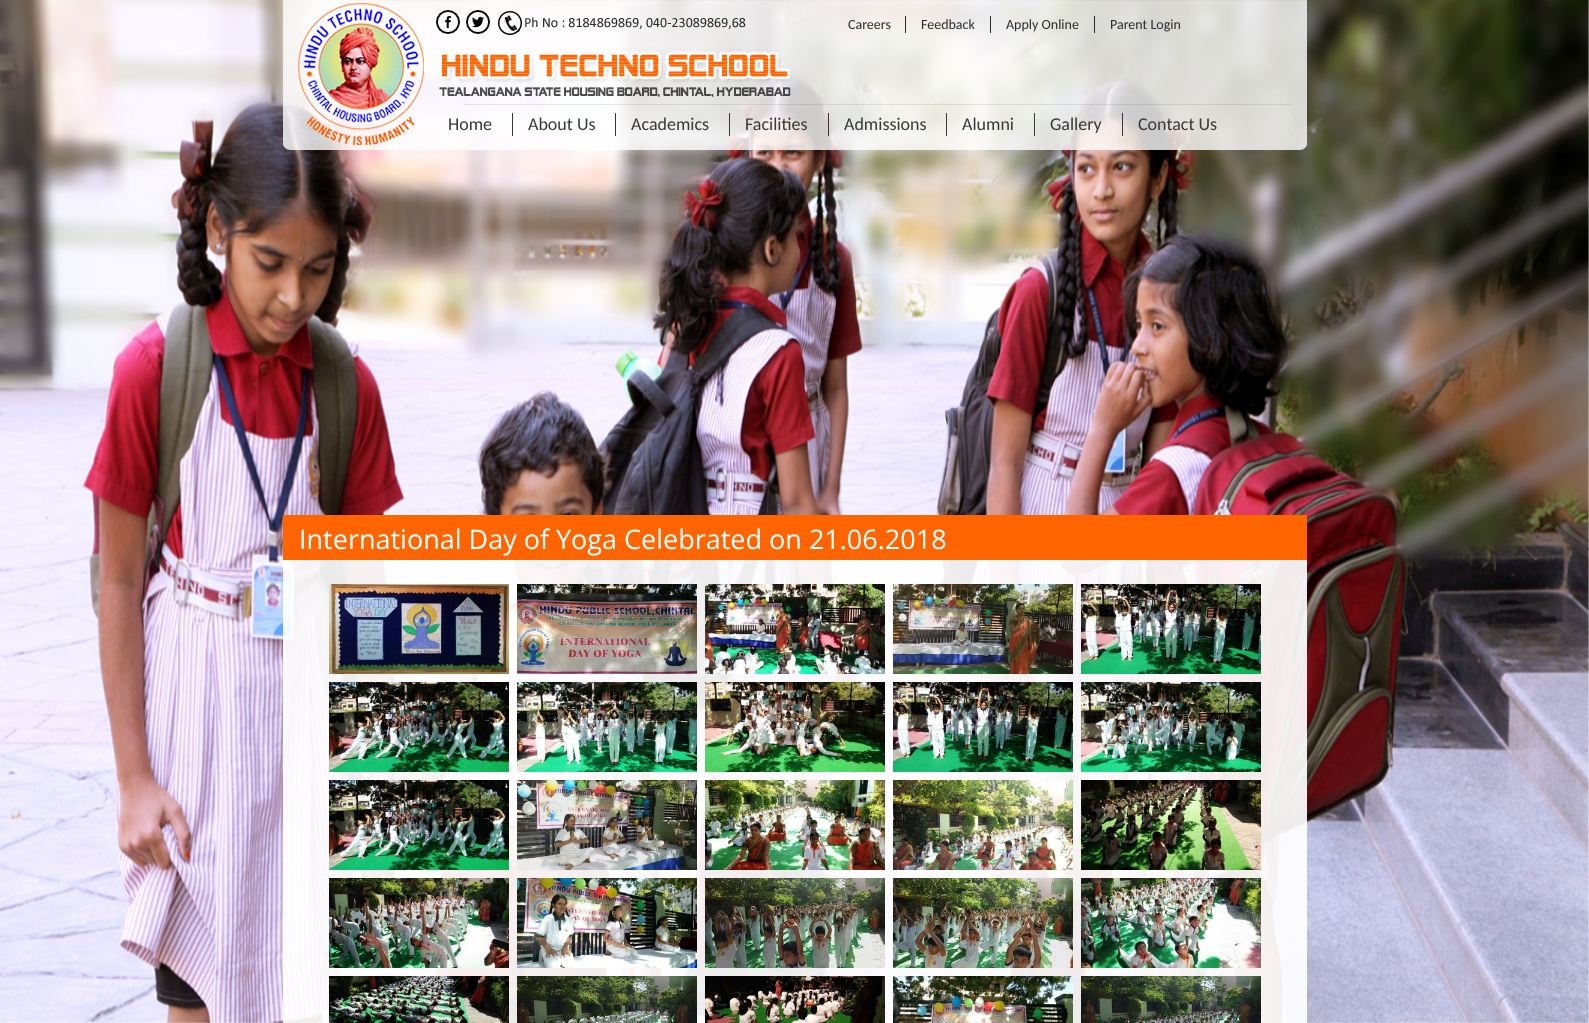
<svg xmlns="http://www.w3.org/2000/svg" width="1589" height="1023">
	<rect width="100%" height="100%" fill="#FFFFFF" />
	<image x="0" y="0" width="1589" height="1023" href="assets/img1.png" />
	<image x="283" y="0" width="1024" height="150" href="assets/img2.png" />
	<image x="298" y="3" width="126" height="142" href="assets/img3.png" />
	<image x="436" y="10" width="24" height="24" href="assets/img4.png" />
	<image x="466" y="10" width="24" height="24" href="assets/img5.png" />
	<image x="498" y="11" width="248" height="24" href="assets/img6.png" />
	<rect x="905" y="16" width="1" height="17" fill="#2D2C2C" />
	<text x="848" y="29" font-family="Carlito" font-size="14" fill="#2D2C2C">Careers</text>
	<rect x="990" y="16" width="1" height="17" fill="#2D2C2C" />
	<text x="921" y="29" font-family="Carlito" font-size="14" fill="#2D2C2C">Feedback</text>
	<rect x="1094" y="16" width="1" height="17" fill="#2D2C2C" />
	<g font-family="Carlito" font-size="14" fill="#2D2C2C">
		<text x="1006" y="29">Apply Online</text>
		<text x="1110" y="29">Parent Login</text>
	</g>
	<image x="439" y="51" width="353" height="46" href="assets/img7.png" />
	<rect x="512" y="113" width="1" height="23" fill="#383838" />
	<text x="448" y="130" font-family="Carlito" font-size="18" fill="#383838">Home</text>
	<rect x="615" y="113" width="1" height="23" fill="#383838" />
	<text x="528" y="130" font-family="Carlito" font-size="18" fill="#383838">About Us</text>
	<rect x="729" y="113" width="1" height="23" fill="#383838" />
	<text x="631" y="130" font-family="Carlito" font-size="18" fill="#383838">Academics</text>
	<rect x="828" y="113" width="1" height="23" fill="#383838" />
	<text x="745" y="130" font-family="Carlito" font-size="18" fill="#383838">Facilities</text>
	<rect x="946" y="113" width="1" height="23" fill="#383838" />
	<text x="844" y="130" font-family="Carlito" font-size="18" fill="#383838">Admissions</text>
	<rect x="1034" y="113" width="1" height="23" fill="#383838" />
	<text x="962" y="130" font-family="Carlito" font-size="18" fill="#383838">Alumni</text>
	<rect x="1122" y="113" width="1" height="23" fill="#383838" />
	<g font-family="Carlito" font-size="18" fill="#383838">
		<text x="1050" y="130">Gallery</text>
		<text x="1138" y="130">Contact Us</text>
	</g>
	<rect x="283" y="560" width="1024" height="463" fill="#FFFFFF" fill-opacity="0.92" />
	<rect x="283" y="515" width="1024" height="45" fill="#FE6500" />
	<text x="299" y="549" font-family="Open Sans" font-size="27" fill="#FFFFFF">International Day of Yoga Celebrated on 21.06.2018</text>
	<image x="329" y="584" width="180" height="90" href="assets/img8.png" />
	<image x="517" y="584" width="180" height="90" href="assets/img9.png" />
	<image x="705" y="584" width="180" height="90" href="assets/img10.png" />
	<image x="893" y="584" width="180" height="90" href="assets/img11.png" />
	<image x="1081" y="584" width="180" height="90" href="assets/img12.png" />
	<image x="329" y="682" width="180" height="90" href="assets/img13.png" />
	<image x="517" y="682" width="180" height="90" href="assets/img14.png" />
	<image x="705" y="682" width="180" height="90" href="assets/img15.png" />
	<image x="893" y="682" width="180" height="90" href="assets/img16.png" />
	<image x="1081" y="682" width="180" height="90" href="assets/img17.png" />
	<image x="329" y="780" width="180" height="90" href="assets/img13.png" />
	<image x="517" y="780" width="180" height="90" href="assets/img18.png" />
	<image x="705" y="780" width="180" height="90" href="assets/img19.png" />
	<image x="893" y="780" width="180" height="90" href="assets/img20.png" />
	<image x="1081" y="780" width="180" height="90" href="assets/img21.png" />
	<image x="329" y="878" width="180" height="90" href="assets/img22.png" />
	<image x="517" y="878" width="180" height="90" href="assets/img23.png" />
	<image x="705" y="878" width="180" height="90" href="assets/img24.png" />
	<image x="893" y="878" width="180" height="90" href="assets/img25.png" />
	<image x="1081" y="878" width="180" height="90" href="assets/img26.png" />
	<image x="329" y="976" width="180" height="47" href="assets/img27.png" />
	<image x="517" y="976" width="180" height="47" href="assets/img28.png" />
	<image x="705" y="976" width="180" height="47" href="assets/img29.png" />
	<image x="893" y="976" width="180" height="47" href="assets/img30.png" />
	<image x="1081" y="976" width="180" height="47" href="assets/img31.png" />
</svg>
